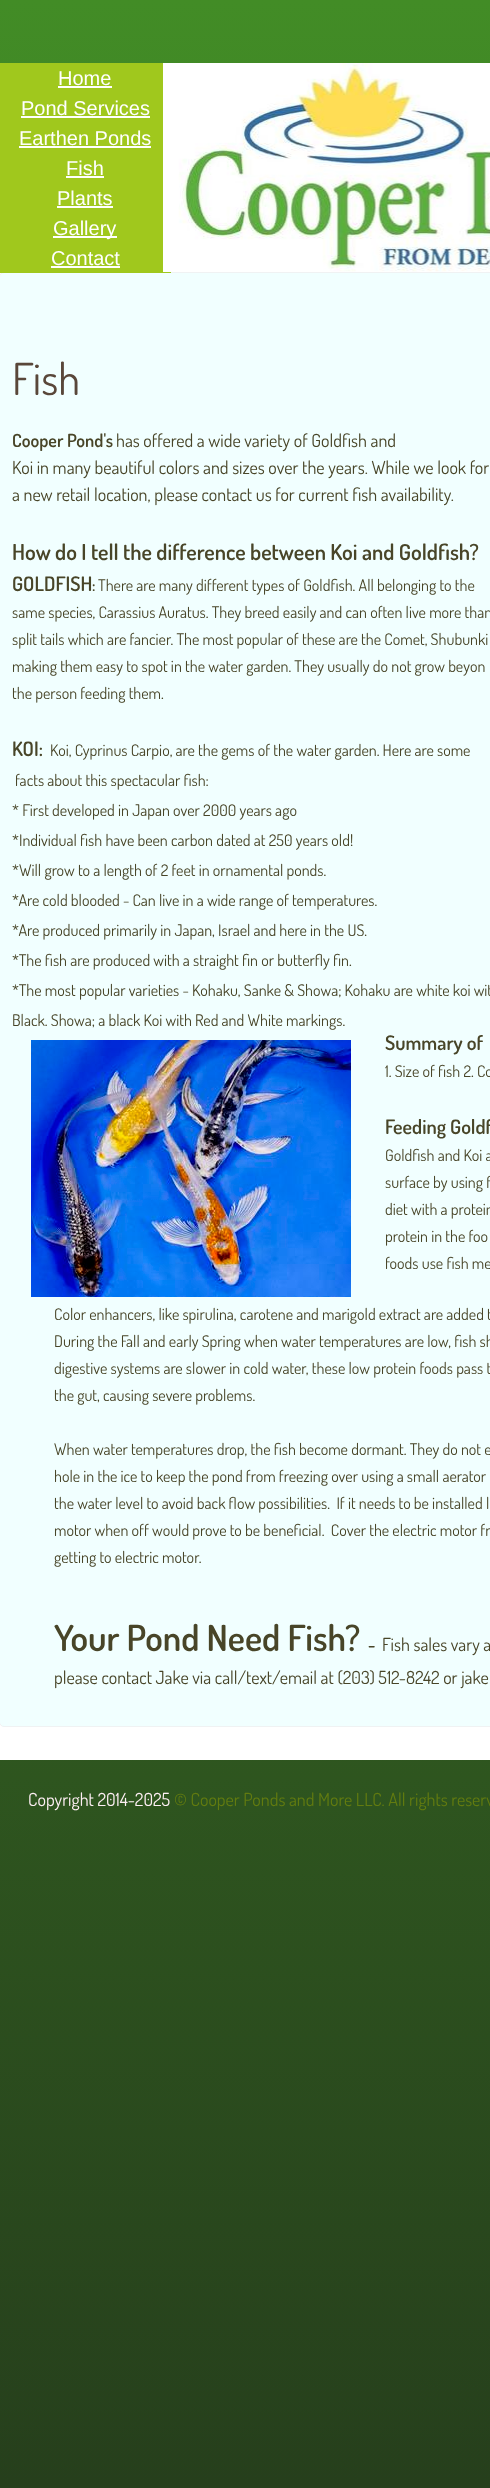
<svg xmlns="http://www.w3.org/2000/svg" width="490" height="2488">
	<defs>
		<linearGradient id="g1" gradientUnits="userSpaceOnUse" x1="245" y1="0" x2="245" y2="2488"><stop offset="0" stop-color="#428C26" /><stop offset="1" stop-color="#263F1C" /></linearGradient>
	</defs>
	<rect width="100%" height="100%" fill="#FFFFFF" />
	<rect x="0" y="0" width="490" height="2488" fill="url(#g1)" />
	<rect x="0" y="273" width="490" height="1487" fill="#FFFFFF" />
	<rect x="0" y="63" width="163" height="180" fill="#A0C81D" />
	<text x="58" y="85" font-family="Liberation Sans" font-size="20" fill="#FFFFFF">Home</text>
	<rect x="58" y="86" width="54" height="2" fill="#FFFFFF" />
	<text x="21" y="115" font-family="Liberation Sans" font-size="20" fill="#FFFFFF">Pond Services</text>
	<rect x="21" y="116" width="129" height="2" fill="#FFFFFF" />
	<text x="19" y="145" font-family="Liberation Sans" font-size="20" fill="#FFFFFF">Earthen Ponds</text>
	<rect x="19" y="146" width="132" height="2" fill="#FFFFFF" />
	<text x="66" y="175" font-family="Liberation Sans" font-size="20" fill="#FFFFFF">Fish</text>
	<rect x="66" y="176" width="38" height="2" fill="#FFFFFF" />
	<text x="57" y="205" font-family="Liberation Sans" font-size="20" fill="#FFFFFF">Plants</text>
	<rect x="57" y="206" width="56" height="2" fill="#FFFFFF" />
	<rect x="53" y="236" width="64" height="2" fill="#FFFFFF" />
	<text x="53" y="235" font-family="Liberation Sans" font-size="20" fill="#FFFFFF">Gallery</text>
	<rect x="-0.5" y="272.5" width="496" height="1454" rx="4.5" fill="#F1FFFF" stroke="#F0F2F3" />
	<rect x="0" y="243" width="171" height="30" fill="#A0C81D" />
	<text x="51" y="265" font-family="Liberation Sans" font-size="20" fill="#FFFFFF">Contact</text>
	<rect x="51" y="266" width="69" height="2" fill="#FFFFFF" />
	<image x="163" y="63" width="327" height="209" href="assets/img1.png" />
	<text x="12" y="395" font-family="Dosis" font-size="44" fill="#59473A">Fish</text>
	<text x="12" y="447" font-family="Dosis" font-size="18" font-weight="600" fill="#484528">Cooper Pond's</text>
	<g font-family="Dosis" font-size="18" fill="#484528">
		<text x="116" y="447">has offered a wide variety of Goldfish and</text>
		<text x="12" y="474">Koi in many beautiful colors and sizes over the years. While we look for</text>
		<text x="12" y="501">a new retail location, please contact us for current fish availability.</text>
	</g>
	<text x="12" y="560" font-family="Dosis" font-size="22" font-weight="600" fill="#484528">How do I tell the difference between Koi and Goldfish?</text>
	<text x="12" y="591" font-family="Dosis" font-size="20" font-weight="600" fill="#484528">GOLDFISH</text>
	<text x="92" y="591" font-family="Dosis" font-size="16" font-weight="600" fill="#484528">:</text>
	<g font-family="Dosis" font-size="16" fill="#484528">
		<text x="98" y="591">There are many different types of Goldfish. All belonging to the</text>
		<text x="12" y="618">same species, Carassius Auratus. They breed easily and can often live more than</text>
		<text x="12" y="645">split tails which are fancier. The most popular of these are the Comet, Shubunki</text>
		<text x="12" y="672">making them easy to spot in the water garden. They usually do not grow beyon</text>
		<text x="12" y="699">the person feeding them.</text>
	</g>
	<text x="12" y="756" font-family="Dosis" font-size="20" font-weight="600" fill="#484528">KOI:</text>
	<g font-family="Dosis" font-size="16" fill="#484528">
		<text x="50" y="756">Koi, Cyprinus Carpio, are the gems of the water garden. Here are some</text>
		<text x="15" y="786">facts about this spectacular fish:</text>
		<text x="12" y="816">* First developed in Japan over 2000 years ago</text>
		<text x="12" y="846">*Individual fish have been carbon dated at 250 years old!</text>
		<text x="12" y="876">*Will grow to a length of 2 feet in ornamental ponds.</text>
		<text x="12" y="906">*Are cold blooded - Can live in a wide range of temperatures.</text>
		<text x="12" y="936">*Are produced primarily in Japan, Israel and here in the US.</text>
		<text x="12" y="966">*The fish are produced with a straight fin or butterfly fin.</text>
		<text x="12" y="996">*The most popular varieties - Kohaku, Sanke &amp; Showa; Kohaku are white koi wit</text>
		<text x="12" y="1026">Black. Showa; a black Koi with Red and White markings.</text>
	</g>
	<image x="31" y="1040" width="320" height="257" href="assets/img2.png" />
	<text x="385" y="1050" font-family="Dosis" font-size="20" font-weight="600" fill="#484528">Summary of</text>
	<text x="385" y="1077" font-family="Dosis" font-size="16" fill="#484528">1. Size of fish 2. Co</text>
	<text x="385" y="1134" font-family="Dosis" font-size="20" font-weight="600" fill="#484528">Feeding Goldf</text>
	<g font-family="Dosis" font-size="16" fill="#484528">
		<text x="385" y="1161">Goldfish and Koi a</text>
		<text x="385" y="1188">surface by using f</text>
		<text x="385" y="1215">diet with a protein</text>
		<text x="385" y="1242">protein in the foo</text>
		<text x="385" y="1269">foods use fish me</text>
		<text x="54" y="1320">Color enhancers, like spirulina, carotene and marigold extract are added t</text>
		<text x="54" y="1347">During the Fall and early Spring when water temperatures are low, fish sh</text>
		<text x="54" y="1374">digestive systems are slower in cold water, these low protein foods pass t</text>
		<text x="54" y="1401">the gut, causing severe problems.</text>
		<text x="54" y="1455">When water temperatures drop, the fish become dormant. They do not e</text>
		<text x="54" y="1482">hole in the ice to keep the pond from freezing over using a small aerator</text>
		<text x="54" y="1509" xml:space="preserve">the water level to avoid back flow possibilities.  If it needs to be installed l</text>
		<text x="54" y="1536" xml:space="preserve">motor when off would prove to be beneficial.  Cover the electric motor fr</text>
		<text x="54" y="1563">getting to electric motor.</text>
	</g>
	<text x="54" y="1651" font-family="Dosis" font-size="36" font-weight="600" fill="#484528">Your Pond Need Fish?</text>
	<text x="368" y="1651" font-family="Dosis" font-size="18" font-weight="600" fill="#484528">-</text>
	<g font-family="Dosis" font-size="18" fill="#484528">
		<text x="382" y="1651">Fish sales vary a</text>
		<text x="54" y="1684">please contact Jake via call/text/email at (203) 512-8242 or jake</text>
	</g>
	<text x="28" y="1806" font-family="Dosis" font-size="18" fill="#FFF0F5">Copyright 2014-2025</text>
	<text x="174" y="1806" font-family="Dosis" font-size="18" fill="#627B10">© Cooper Ponds and More LLC. All rights reserv</text>
</svg>
